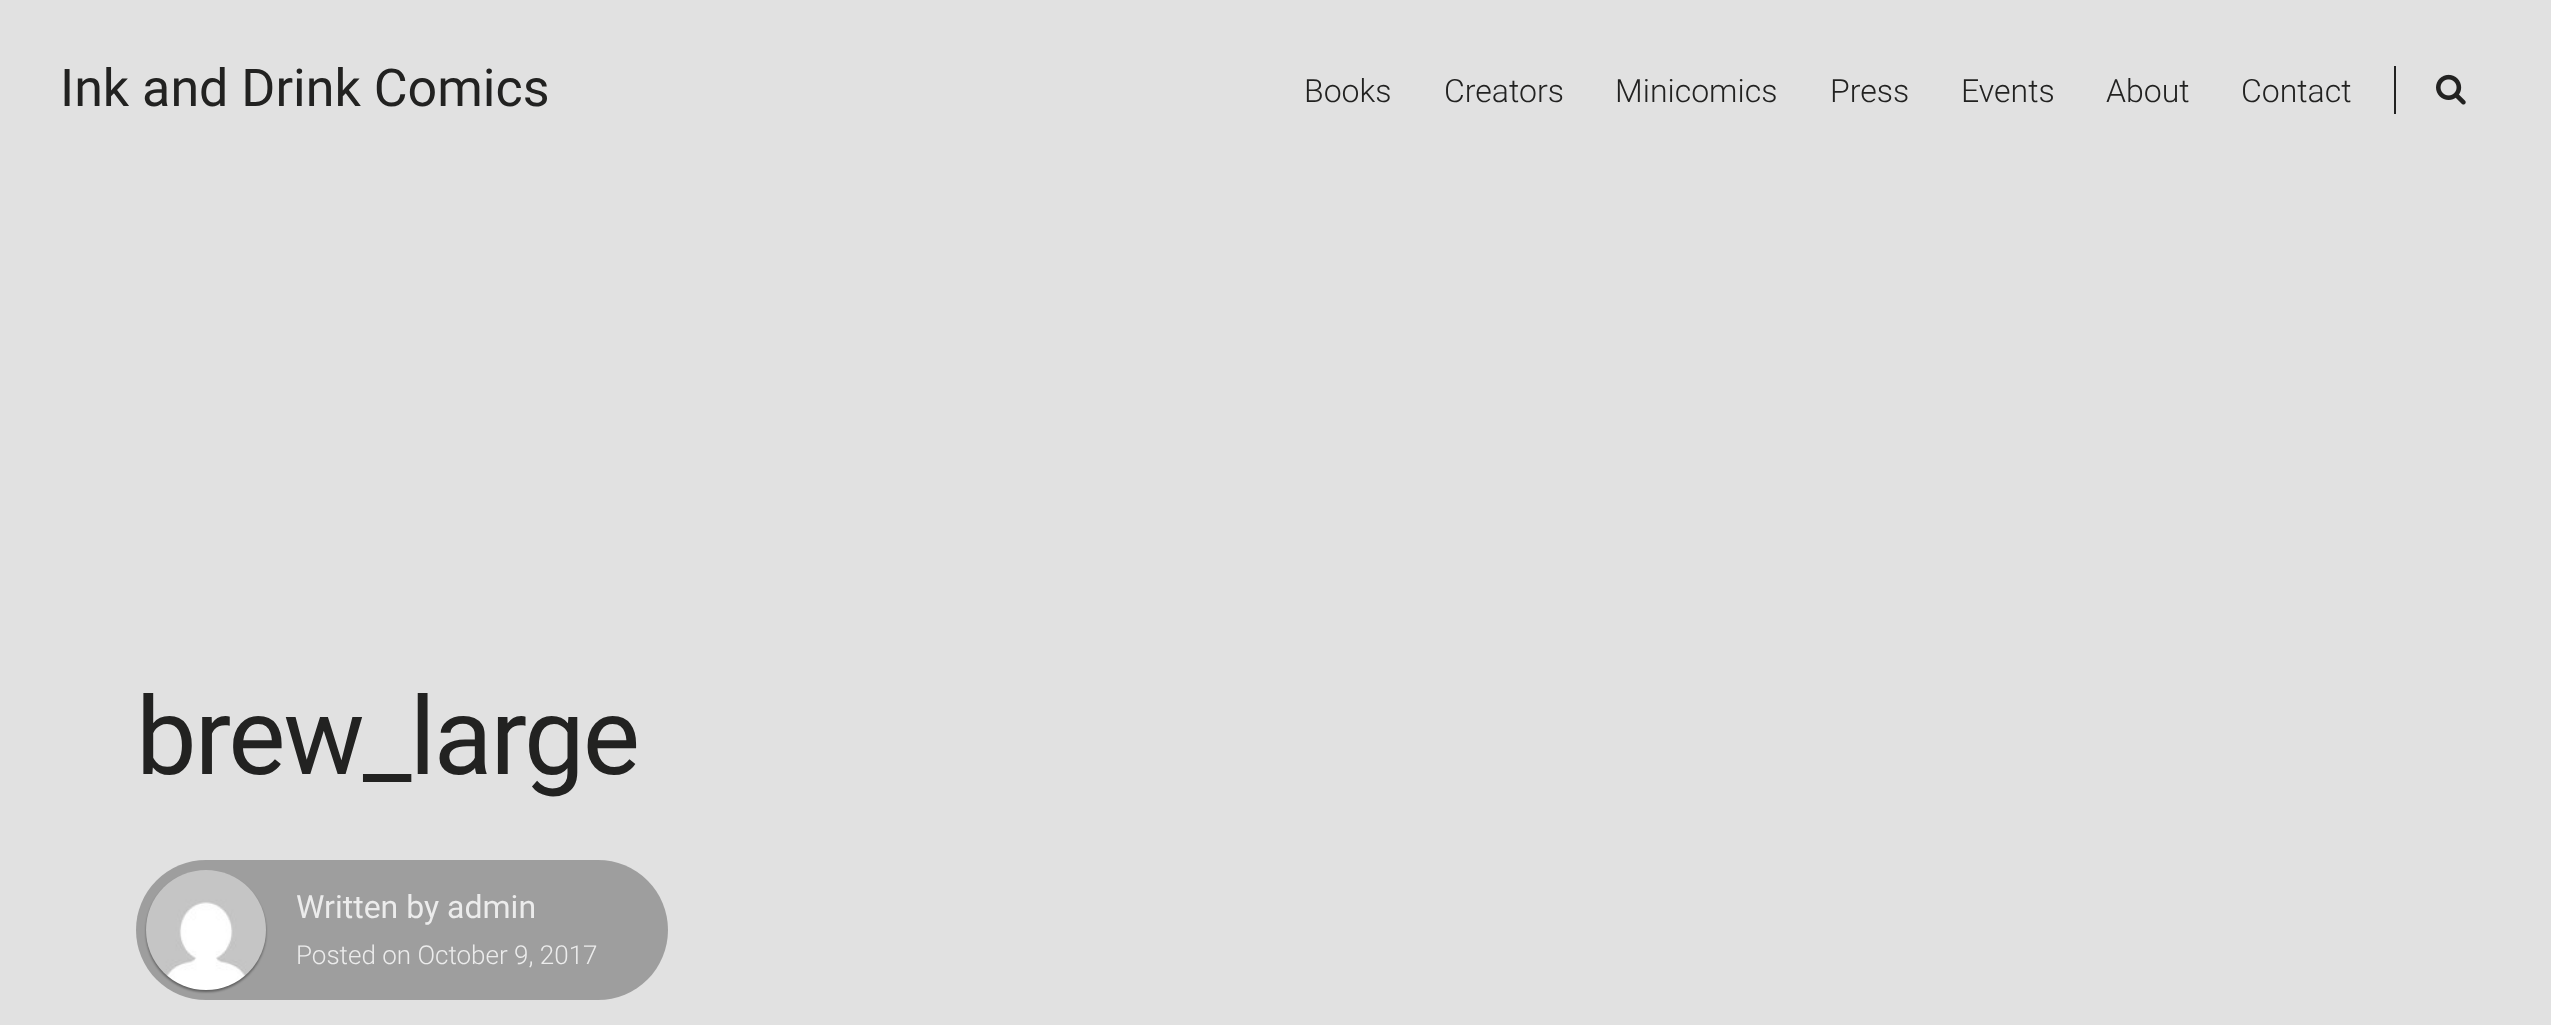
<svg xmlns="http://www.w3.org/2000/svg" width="2551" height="1025">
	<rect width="100%" height="100%" fill="#E1E1E1" />
	<text x="60" y="106" font-family="Roboto" font-size="52" fill="#222221">Ink and Drink Comics</text>
	<g font-family="Roboto" font-size="32" font-weight="300" fill="#222221">
		<text x="1304" y="102">Books</text>
		<text x="1444" y="102">Creators</text>
		<text x="1615" y="102">Minicomics</text>
		<text x="1830" y="102">Press</text>
		<text x="1961" y="102">Events</text>
		<text x="2106" y="102">About</text>
		<text x="2241" y="102">Contact</text>
	</g>
	<rect x="2394" y="66" width="2" height="48" fill="#222221" />
	<image x="2436" y="74" width="30" height="31" href="assets/img1.png" />
	<text x="136" y="774" font-family="Roboto" font-size="108" letter-spacing="-2" fill="#222221">brew_large</text>
	<rect x="136" y="860" width="532" height="140" rx="70" fill="#9E9E9E" />
	<rect x="146" y="872" width="120" height="120" rx="60" fill="#000000" fill-opacity="0.4" filter="blur(1px)" />
	<image x="146" y="870" width="120" height="120" href="assets/img2.png" />
	<text x="296" y="918" font-family="Roboto" font-size="32" fill="#ECECEC">Written by admin</text>
	<text x="296" y="964" font-family="Roboto" font-size="26" font-weight="300" fill="#ECECEC">Posted on October 9, 2017</text>
</svg>
